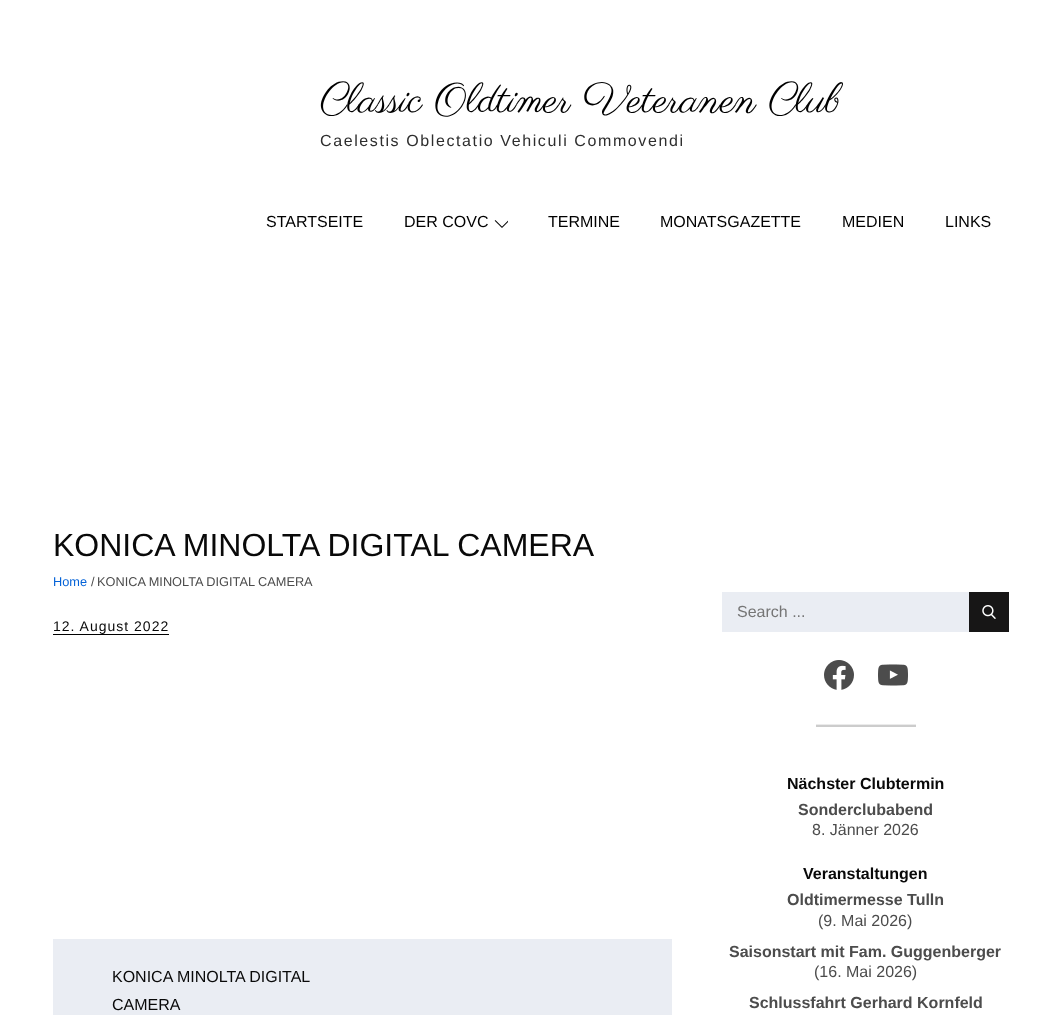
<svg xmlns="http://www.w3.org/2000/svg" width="1062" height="1015">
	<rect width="100%" height="100%" fill="#FFFFFF" />
	<text x="320" y="112" font-family="Parisienne" font-size="42" fill="#000000">Classic Oldtimer Veteranen Club</text>
	<text x="320" y="146" font-family="Liberation Sans" font-size="16" letter-spacing="1.6" fill="#2E2E2E">Caelestis Oblectatio Vehiculi Commovendi</text>
	<g font-family="Liberation Sans" font-size="16" fill="#000000">
		<text x="266" y="227">STARTSEITE</text>
		<text x="404" y="227">DER COVC</text>
	</g>
	<image x="494" y="220" width="14" height="8" href="assets/img1.png" />
	<g font-family="Liberation Sans" font-size="16" fill="#000000">
		<text x="548" y="227">TERMINE</text>
		<text x="660" y="227">MONATSGAZETTE</text>
		<text x="842" y="227">MEDIEN</text>
		<text x="945" y="227">LINKS</text>
	</g>
	<text x="53" y="556" font-family="Liberation Sans" font-size="32" fill="#090909">KONICA MINOLTA DIGITAL CAMERA</text>
	<text x="53" y="586" font-family="Liberation Sans" font-size="12.75" fill="#0563D8">Home</text>
	<g font-family="Liberation Sans" font-size="12.75" fill="#4C4C4C">
		<text x="91" y="586">/</text>
		<text x="97" y="586">KONICA MINOLTA DIGITAL CAMERA</text>
	</g>
	<text x="53" y="631" font-family="Liberation Sans" font-size="14" letter-spacing="1" fill="#090909">12. August 2022</text>
	<rect x="53" y="634" width="116" height="1" fill="#000000" />
	<rect x="53" y="939" width="619" height="76" fill="#EAEDF3" />
	<g font-family="Liberation Sans" font-size="16" fill="#090909">
		<text x="112" y="982">KONICA MINOLTA DIGITAL</text>
		<text x="112" y="1010">CAMERA</text>
	</g>
	<rect x="722" y="592" width="247" height="40" fill="#EAEDF3" />
	<text x="737" y="617" font-family="Liberation Sans" font-size="16" fill="#757575">Search ...</text>
	<rect x="969" y="592" width="40" height="40" fill="#171616" />
	<image x="982" y="605" width="14" height="14" href="assets/img2.png" />
	<image x="824" y="660" width="30" height="30" href="assets/img3.png" />
	<image x="878" y="664" width="30" height="22" href="assets/img4.png" />
	<rect x="816" y="724" width="100" height="1" fill="#EBEBEB" />
	<rect x="816" y="725" width="100" height="2" fill="#CCCCCC" />
	<text x="787" y="789" font-family="Liberation Sans" font-size="16" font-weight="700" fill="#090909">Nächster Clubtermin</text>
	<text x="798" y="815" font-family="Liberation Sans" font-size="16" font-weight="700" fill="#4C4C4C">Sonderclubabend</text>
	<text x="812" y="835" font-family="Liberation Sans" font-size="16" fill="#4C4C4C">8. Jänner 2026</text>
	<text x="803" y="879" font-family="Liberation Sans" font-size="16" font-weight="700" fill="#090909">Veranstaltungen</text>
	<text x="787" y="905" font-family="Liberation Sans" font-size="16" font-weight="700" fill="#4C4C4C">Oldtimermesse Tulln</text>
	<text x="818" y="926" font-family="Liberation Sans" font-size="16" fill="#4C4C4C">(9. Mai 2026)</text>
	<text x="729" y="957" font-family="Liberation Sans" font-size="16" font-weight="700" fill="#4C4C4C">Saisonstart mit Fam. Guggenberger</text>
	<text x="814" y="977" font-family="Liberation Sans" font-size="16" fill="#4C4C4C">(16. Mai 2026)</text>
	<text x="749" y="1008" font-family="Liberation Sans" font-size="16" font-weight="700" fill="#4C4C4C">Schlussfahrt Gerhard Kornfeld</text>
</svg>
